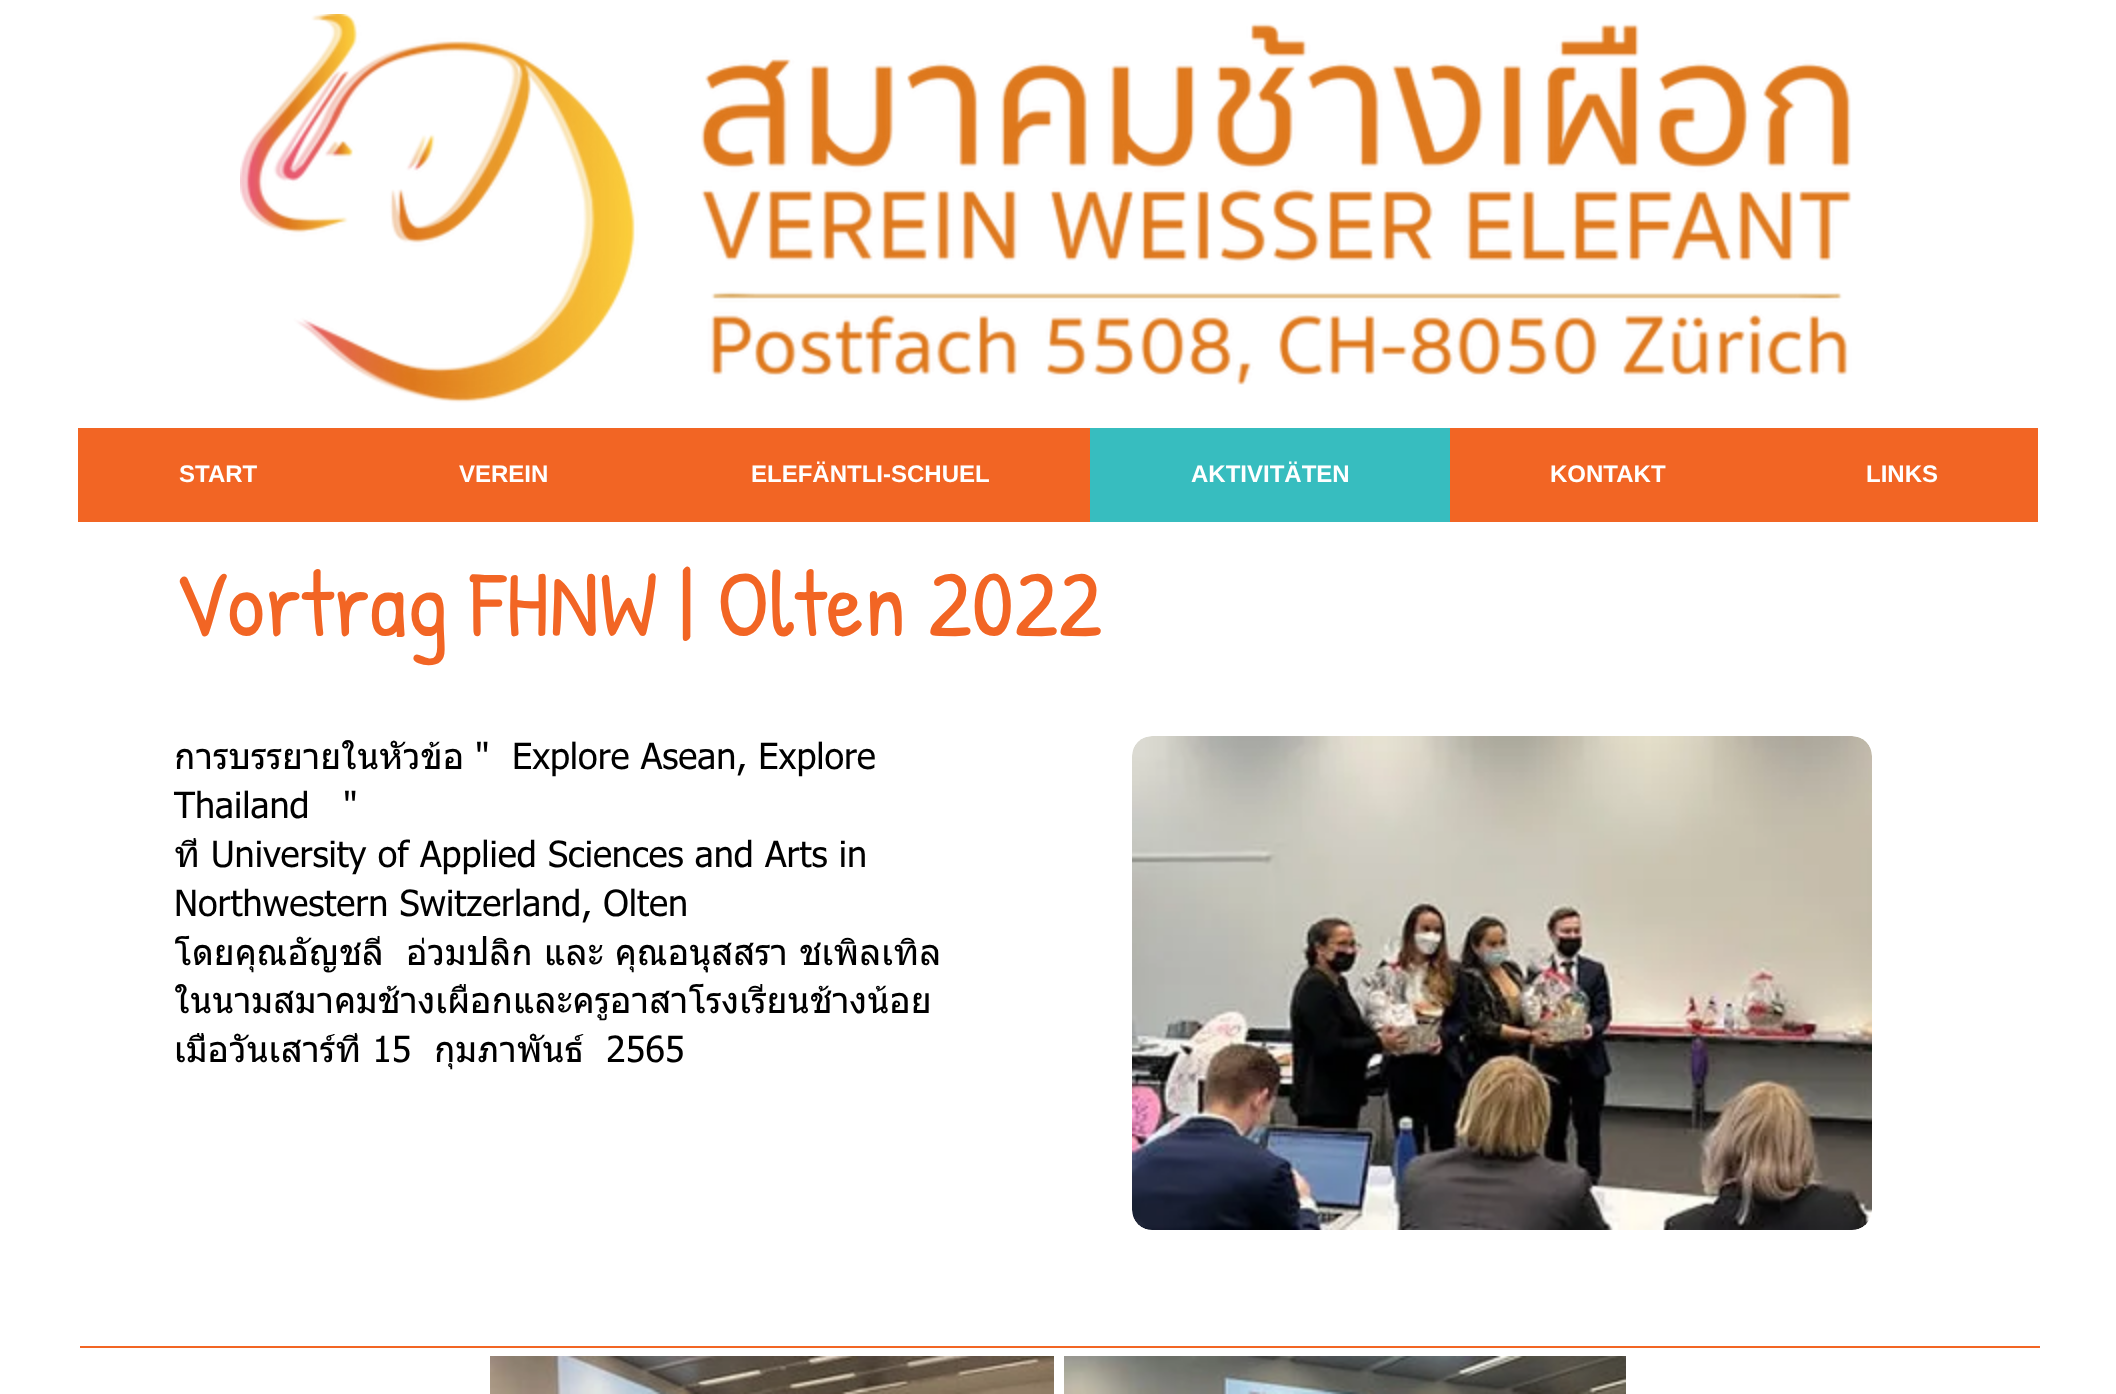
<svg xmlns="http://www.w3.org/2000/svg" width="2116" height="1394">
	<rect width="100%" height="100%" fill="#FFFFFF" />
	<image x="240" y="14" width="1612" height="389" href="assets/img1.png" />
	<rect x="78" y="428" width="1012" height="94" fill="#F26524" />
	<g font-family="Liberation Sans" font-size="24" font-weight="700" fill="#FFFFFF">
		<text x="179" y="482">START</text>
		<text x="459" y="482">VEREIN</text>
		<text x="751" y="482">ELEFÄNTLI-SCHUEL</text>
	</g>
	<rect x="1090" y="428" width="360" height="94" fill="#37BDBF" />
	<text x="1191" y="482" font-family="Liberation Sans" font-size="24" font-weight="700" fill="#FFFFFF">AKTIVITÄTEN</text>
	<rect x="1450" y="428" width="588" height="94" fill="#F26524" />
	<g font-family="Liberation Sans" font-size="24" font-weight="700" fill="#FFFFFF">
		<text x="1550" y="482">KONTAKT</text>
		<text x="1866" y="482">LINKS</text>
	</g>
	<text x="174" y="636" font-family="Patrick Hand" font-size="94" fill="#F26524">Vortrag FHNW | Olten 2022</text>
	<text x="174" y="769" font-family="tahoma" font-size="36" fill="#000000">การบรรยายในหัวข้อ</text>
	<g font-family="'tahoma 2'" font-size="36" fill="#000000">
		<text x="475" y="769" xml:space="preserve">"  Explore Asean, Explore</text>
		<text x="174" y="818" xml:space="preserve">Thailand   "</text>
	</g>
	<text x="174" y="867" font-family="tahoma" font-size="36" fill="#000000">ที่</text>
	<g font-family="'tahoma 2'" font-size="36" fill="#000000">
		<text x="211" y="867">University of Applied Sciences and Arts in</text>
		<text x="174" y="916">Northwestern Switzerland, Olten</text>
	</g>
	<g font-family="tahoma" font-size="36" fill="#000000">
		<text x="174" y="965">โดยคุณอัญชลี</text>
		<text x="406" y="965">อ่วมปลิก และ คุณอนุุสสรา ชเพิลเทิล</text>
		<text x="174" y="1013">ในนามสมาคมช้างเผือกและครูอาสาโรงเรียนช้างน้อย</text>
		<text x="174" y="1062">เมื่อวันเสาร์ที่ 15</text>
		<text x="434" y="1062">กุมภาพันธ์</text>
		<text x="606" y="1062">2565</text>
	</g>
	<image x="1132" y="736" width="740" height="494" href="assets/img2.png" />
	<rect x="80" y="1346" width="1960" height="2" fill="#F26524" />
	<image x="490" y="1356" width="564" height="38" href="assets/img3.png" />
	<image x="1064" y="1356" width="562" height="38" href="assets/img4.png" />
</svg>
